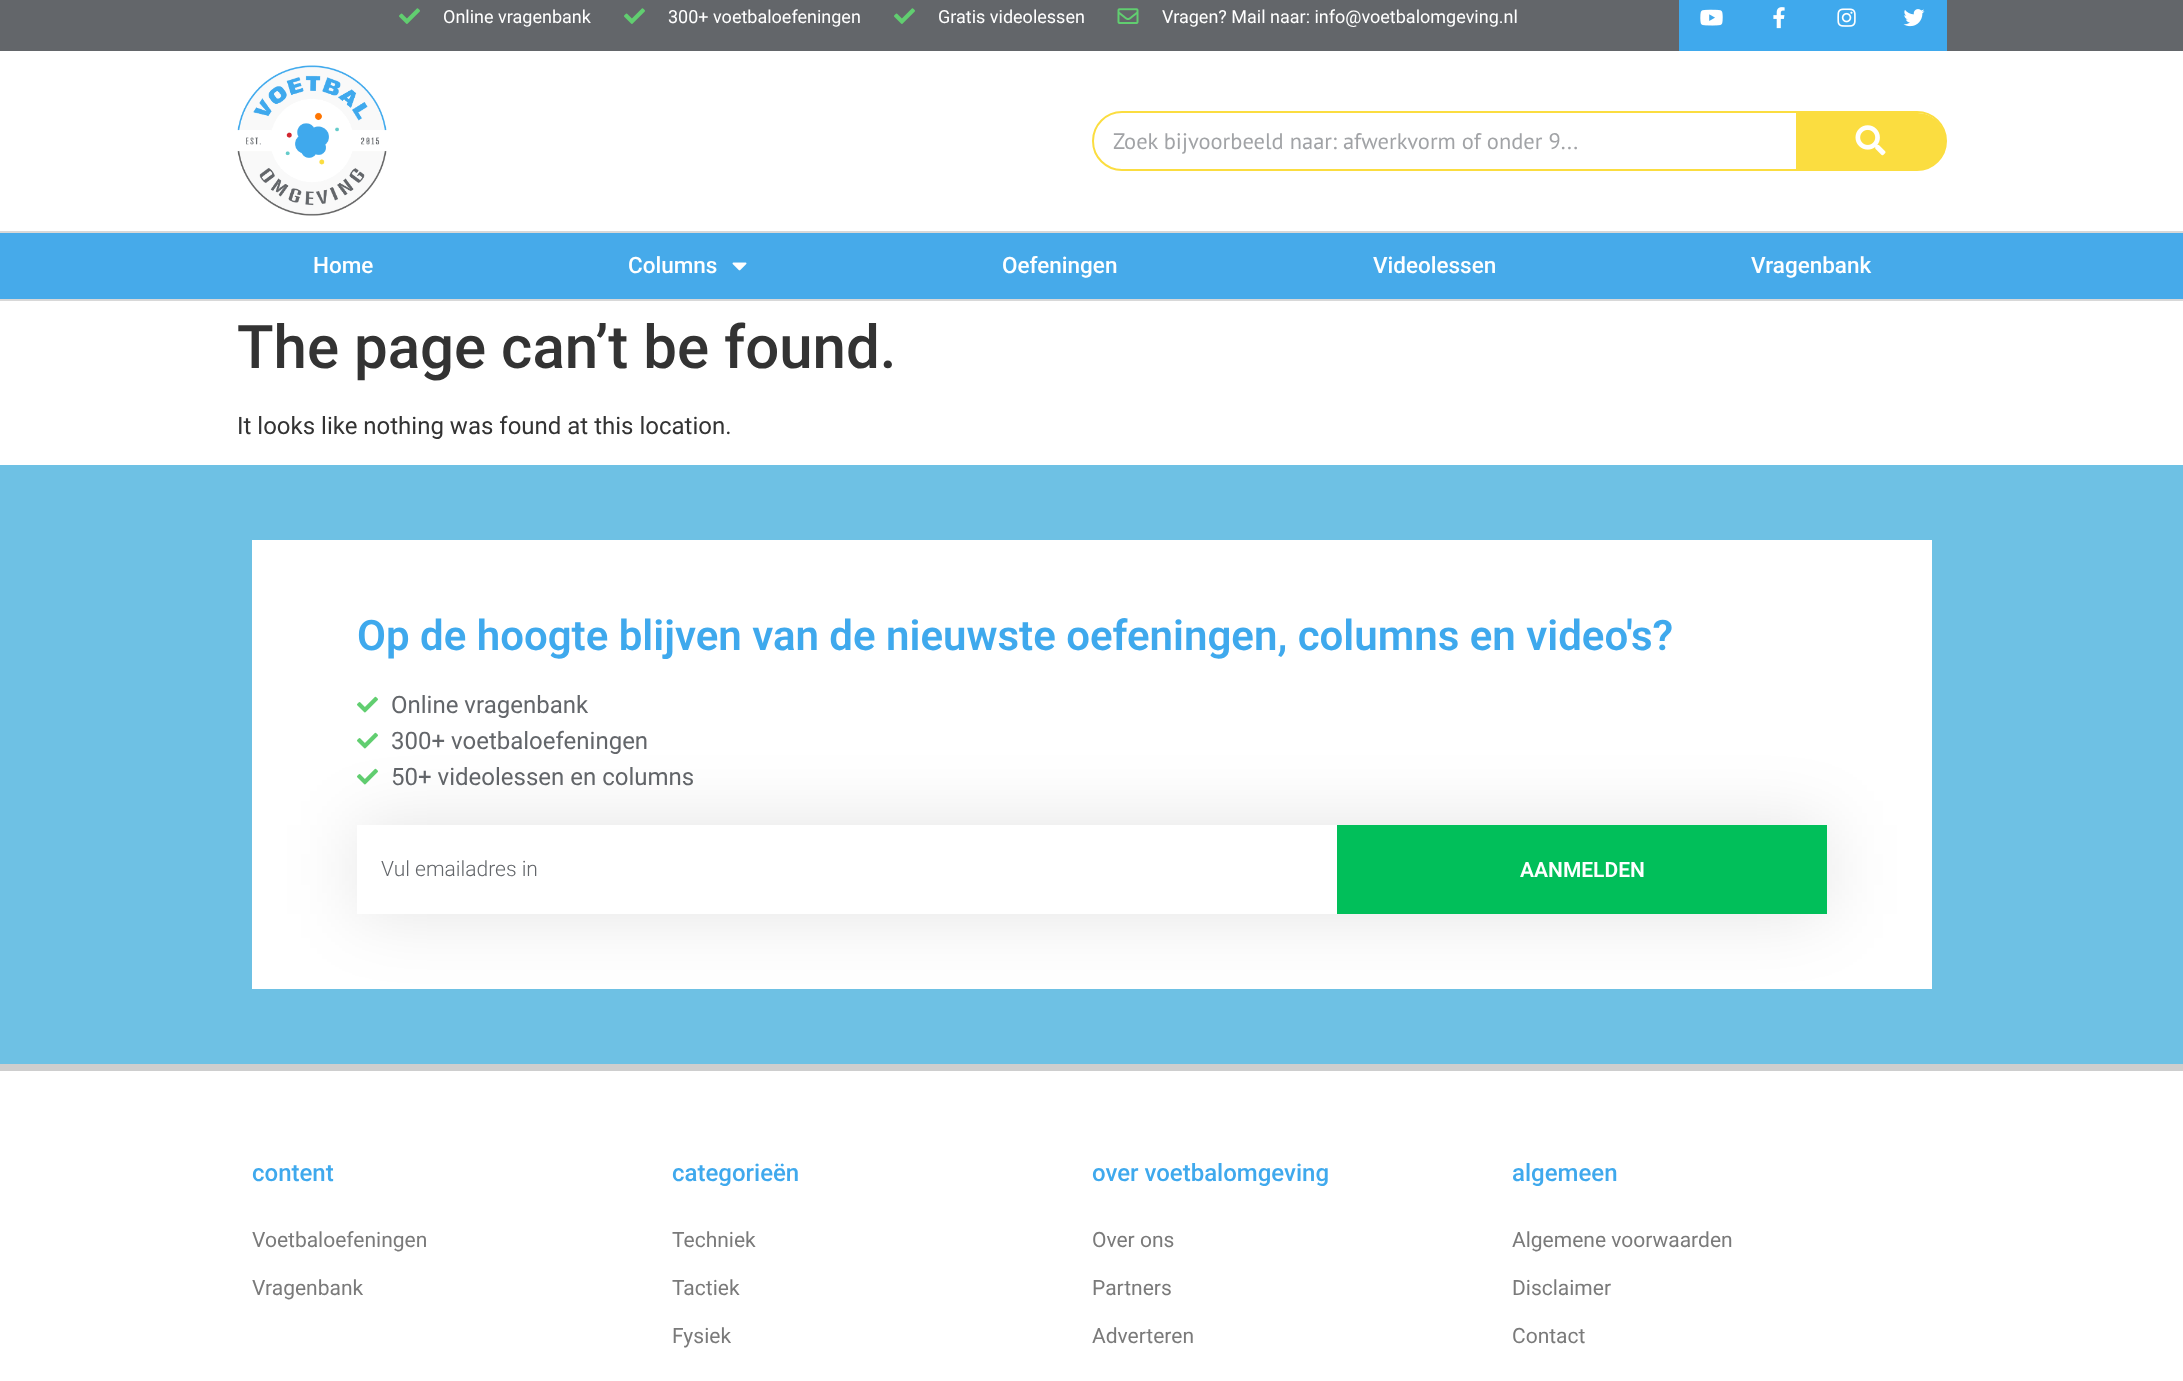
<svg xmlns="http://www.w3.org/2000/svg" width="2183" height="1381">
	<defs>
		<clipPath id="clip1"><path d="M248 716H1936V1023H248ZM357 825H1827V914H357Z" clip-rule="evenodd" /></clipPath>
	</defs>
	<rect width="100%" height="100%" fill="#FFFFFF" />
	<rect x="0" y="0" width="2183" height="51" fill="#63666A" />
	<image x="399" y="8" width="21" height="16" href="assets/img1.png" />
	<text x="443" y="23" font-family="Roboto" font-size="18" fill="#FFFFFF">Online vragenbank</text>
	<image x="624" y="8" width="21" height="16" href="assets/img1.png" />
	<text x="668" y="23" font-family="Roboto" font-size="18" fill="#FFFFFF">300+ voetbaloefeningen</text>
	<image x="894" y="8" width="21" height="16" href="assets/img1.png" />
	<text x="938" y="23" font-family="Roboto" font-size="18" fill="#FFFFFF">Gratis videolessen</text>
	<image x="1117" y="8" width="22" height="16" href="assets/img2.png" />
	<text x="1162" y="23" font-family="Roboto" font-size="18" fill="#FFFFFF">Vragen? Mail naar: info@voetbalomgeving.nl</text>
	<rect x="1679" y="0" width="268" height="51" fill="#3FA9ED" />
	<image x="1700" y="9" width="23" height="17" href="assets/img3.png" />
	<image x="1773" y="7" width="12" height="22" href="assets/img4.png" />
	<image x="1837" y="8" width="19" height="19" href="assets/img5.png" />
	<image x="1903" y="9" width="22" height="18" href="assets/img6.png" />
	<rect x="0" y="231" width="2183" height="2" fill="#D8D8D8" />
	<image x="237" y="65" width="150" height="151" href="assets/img7.png" />
	<rect x="1093" y="112" width="853" height="58" rx="29" fill="none" stroke="#FBDD40" stroke-width="2" />
	<text x="1113" y="149" font-family="PT Sans" font-size="22.5" fill="#A1A3A6">Zoek bijvoorbeeld naar: afwerkvorm of onder 9...</text>
	<path d="M1796 113H1917.5C1933 113 1946 126 1946 141.5C1946 157 1933 170 1917.5 170H1796Z" fill="#FBDD40" />
	<image x="1855" y="125" width="31" height="31" href="assets/img8.png" />
	<rect x="0" y="233" width="2183" height="66" fill="#46AAEA" />
	<rect x="0" y="299" width="2183" height="2" fill="#D8D8D8" />
	<g font-family="Roboto" font-size="22.5" font-weight="500" fill="#FFFFFF">
		<text x="313" y="273">Home</text>
		<text x="628" y="273">Columns</text>
	</g>
	<image x="732" y="262" width="15" height="9" href="assets/img9.png" />
	<g font-family="Roboto" font-size="22.5" font-weight="500" fill="#FFFFFF">
		<text x="1002" y="273">Oefeningen</text>
		<text x="1373" y="273">Videolessen</text>
		<text x="1751" y="273">Vragenbank</text>
	</g>
	<text x="237" y="368" font-family="Roboto" font-size="60" font-weight="500" fill="#333333">The page can’t be found.</text>
	<text x="237" y="434" font-family="Roboto" font-size="24" fill="#333333">It looks like nothing was found at this location.</text>
	<rect x="0" y="465" width="2183" height="599" fill="#6EC1E4" />
	<rect x="252" y="540" width="1680" height="449" fill="#FFFFFF" />
	<text x="357" y="650" font-family="Roboto" font-size="42" font-weight="600" fill="#3FA9ED">Op de hoogte blijven van de nieuwste oefeningen, columns en video's?</text>
	<image x="357" y="696" width="21" height="17" href="assets/img10.png" />
	<text x="391" y="713" font-family="Roboto" font-size="24" fill="#63666A">Online vragenbank</text>
	<image x="357" y="732" width="21" height="17" href="assets/img10.png" />
	<text x="391" y="749" font-family="Roboto" font-size="24" fill="#63666A">300+ voetbaloefeningen</text>
	<image x="357" y="768" width="21" height="17" href="assets/img10.png" />
	<text x="391" y="785" font-family="Roboto" font-size="24" fill="#63666A">50+ videolessen en columns</text>
	<g clip-path="url(#clip1)">
		<rect x="357" y="825" width="1470" height="89" fill="#000000" fill-opacity="0.11" filter="blur(36px)" />
	</g>
	<text x="381" y="876" font-family="Roboto" font-size="21" font-weight="300" fill="#63666A">Vul emailadres in</text>
	<rect x="1337" y="825" width="490" height="89" fill="#01BF5A" />
	<text x="1520" y="877" font-family="Roboto" font-size="21" font-weight="600" fill="#FFFFFF">AANMELDEN</text>
	<rect x="0" y="1064" width="2183" height="7" fill="#CECECE" />
	<text x="252" y="1181" font-family="Roboto" font-size="24" font-weight="500" fill="#3FA9ED">content</text>
	<g font-family="Roboto" font-size="21" fill="#7A7A7A">
		<text x="252" y="1247">Voetbaloefeningen</text>
		<text x="252" y="1295">Vragenbank</text>
	</g>
	<text x="672" y="1181" font-family="Roboto" font-size="24" font-weight="500" fill="#3FA9ED">categorieën</text>
	<g font-family="Roboto" font-size="21" fill="#7A7A7A">
		<text x="672" y="1247">Techniek</text>
		<text x="672" y="1295">Tactiek</text>
		<text x="672" y="1343">Fysiek</text>
	</g>
	<text x="1092" y="1181" font-family="Roboto" font-size="24" font-weight="500" fill="#3FA9ED">over voetbalomgeving</text>
	<g font-family="Roboto" font-size="21" fill="#7A7A7A">
		<text x="1092" y="1247">Over ons</text>
		<text x="1092" y="1295">Partners</text>
		<text x="1092" y="1343">Adverteren</text>
	</g>
	<text x="1512" y="1181" font-family="Roboto" font-size="24" font-weight="500" fill="#3FA9ED">algemeen</text>
	<g font-family="Roboto" font-size="21" fill="#7A7A7A">
		<text x="1512" y="1247">Algemene voorwaarden</text>
		<text x="1512" y="1295">Disclaimer</text>
		<text x="1512" y="1343">Contact</text>
	</g>
</svg>
